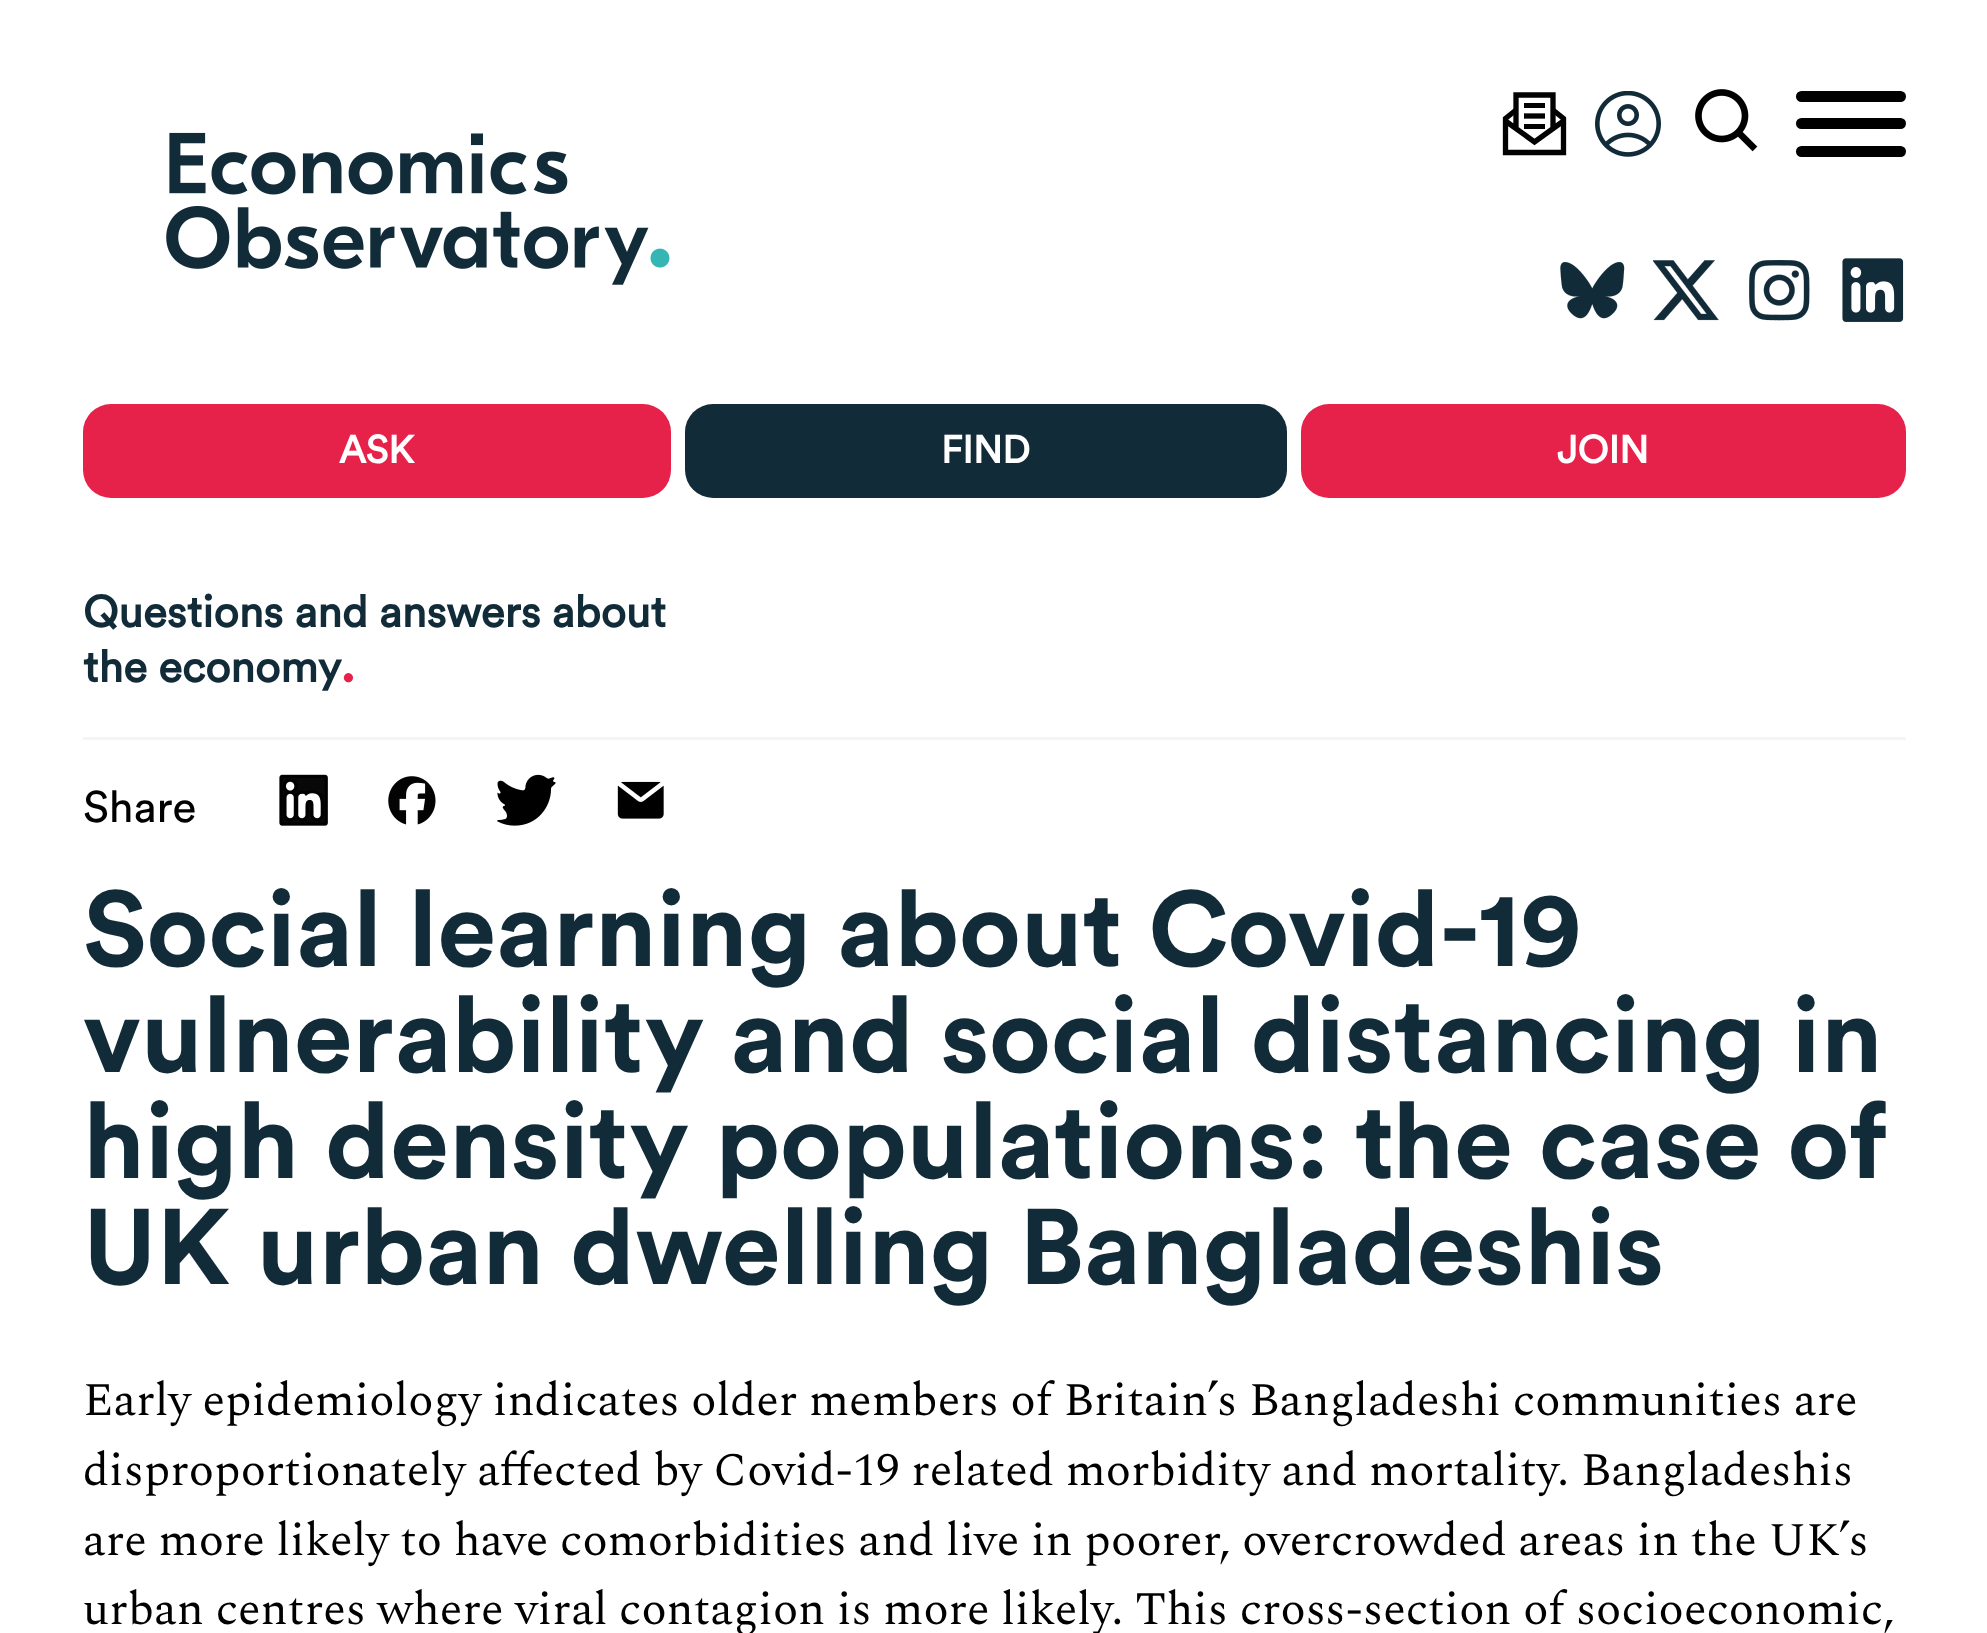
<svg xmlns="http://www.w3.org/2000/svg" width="1987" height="1633">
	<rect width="100%" height="100%" fill="#FFFFFF" />
	<rect x="83" y="737" width="1823" height="3" fill="#F5F5F5" />
	<image x="166" y="132" width="504" height="153" href="assets/img1.png" />
	<path d="M1553 110L1563.5 118.5V152.5H1505.5V118.5L1516 110" fill="none" stroke="#020202" stroke-width="5.3" />
	<path d="M1505.5 121L1534.5 142L1563.5 121M1516 129V95H1553V129" fill="none" stroke="#020202" stroke-width="5.3" />
	<rect x="1524" y="103" width="21" height="5" fill="#020202" />
	<path d="M1524 116H1545" fill="none" stroke="#020202" stroke-width="5.3" />
	<rect x="1524" y="124" width="21" height="5" fill="#020202" />
	<image x="1595" y="91" width="66" height="66" href="assets/img2.png" />
	<image x="1695" y="89" width="63" height="63" href="assets/img3.png" />
	<rect x="1796" y="91" width="110" height="11" rx="5.5" fill="#000000" />
	<rect x="1796" y="118" width="110" height="11" rx="5.5" fill="#000000" />
	<rect x="1796" y="146" width="110" height="11" rx="5.5" fill="#000000" />
	<image x="1560" y="262" width="65" height="57" href="assets/img4.png" />
	<image x="1653" y="260" width="66" height="61" href="assets/img5.png" />
	<image x="1749" y="260" width="61" height="61" href="assets/img6.png" />
	<image x="1842" y="258" width="62" height="64" href="assets/img7.png" />
	<rect x="83" y="404" width="588" height="94" rx="28" fill="#E6224B" />
	<text x="339" y="463" font-family="Circular" font-size="38.5" font-weight="700" fill="#FFFFFF">ASK</text>
	<rect x="685" y="404" width="602" height="94" rx="28" fill="#122B39" />
	<text x="941" y="463" font-family="Circular" font-size="38.5" font-weight="700" fill="#FFFFFF">FIND</text>
	<rect x="1301" y="404" width="605" height="94" rx="28" fill="#E6224B" />
	<text x="1557" y="463" font-family="Circular" font-size="38.5" font-weight="700" fill="#FFFFFF">JOIN</text>
	<g font-family="Circular" font-size="44" font-weight="700" fill="#122B39">
		<text x="83" y="627">Questions and answers about</text>
		<text x="83" y="682">the economy</text>
	</g>
	<text x="340" y="682" font-family="Circular" font-size="55" font-weight="700" fill="#E6224B">.</text>
	<text x="83" y="822" font-family="Circular" font-size="44" fill="#000000">Share</text>
	<image x="279" y="774" width="49" height="52" href="assets/img8.png" />
	<image x="388" y="776" width="48" height="49" href="assets/img9.png" />
	<image x="497" y="774" width="59" height="52" href="assets/img10.png" />
	<image x="617" y="781" width="47" height="38" href="assets/img11.png" />
	<g font-family="'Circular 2'" font-size="106" font-weight="700" fill="#122B39">
		<text x="83" y="966">Social learning about Covid-19</text>
		<text x="83" y="1072">vulnerability and social distancing in</text>
		<text x="83" y="1178">high density populations: the case of</text>
		<text x="83" y="1284">UK urban dwelling Bangladeshis</text>
	</g>
	<g font-family="Spectral" font-size="46.65" fill="#000000">
		<text x="83" y="1415">Early epidemiology indicates older members of Britain’s Bangladeshi communities are</text>
		<text x="83" y="1485">disproportionately affected by Covid-19 related morbidity and mortality. Bangladeshis</text>
		<text x="83" y="1555">are more likely to have comorbidities and live in poorer, overcrowded areas in the UK’s</text>
		<text x="83" y="1624">urban centres where viral contagion is more likely. This cross-section of socioeconomic,</text>
	</g>
</svg>
